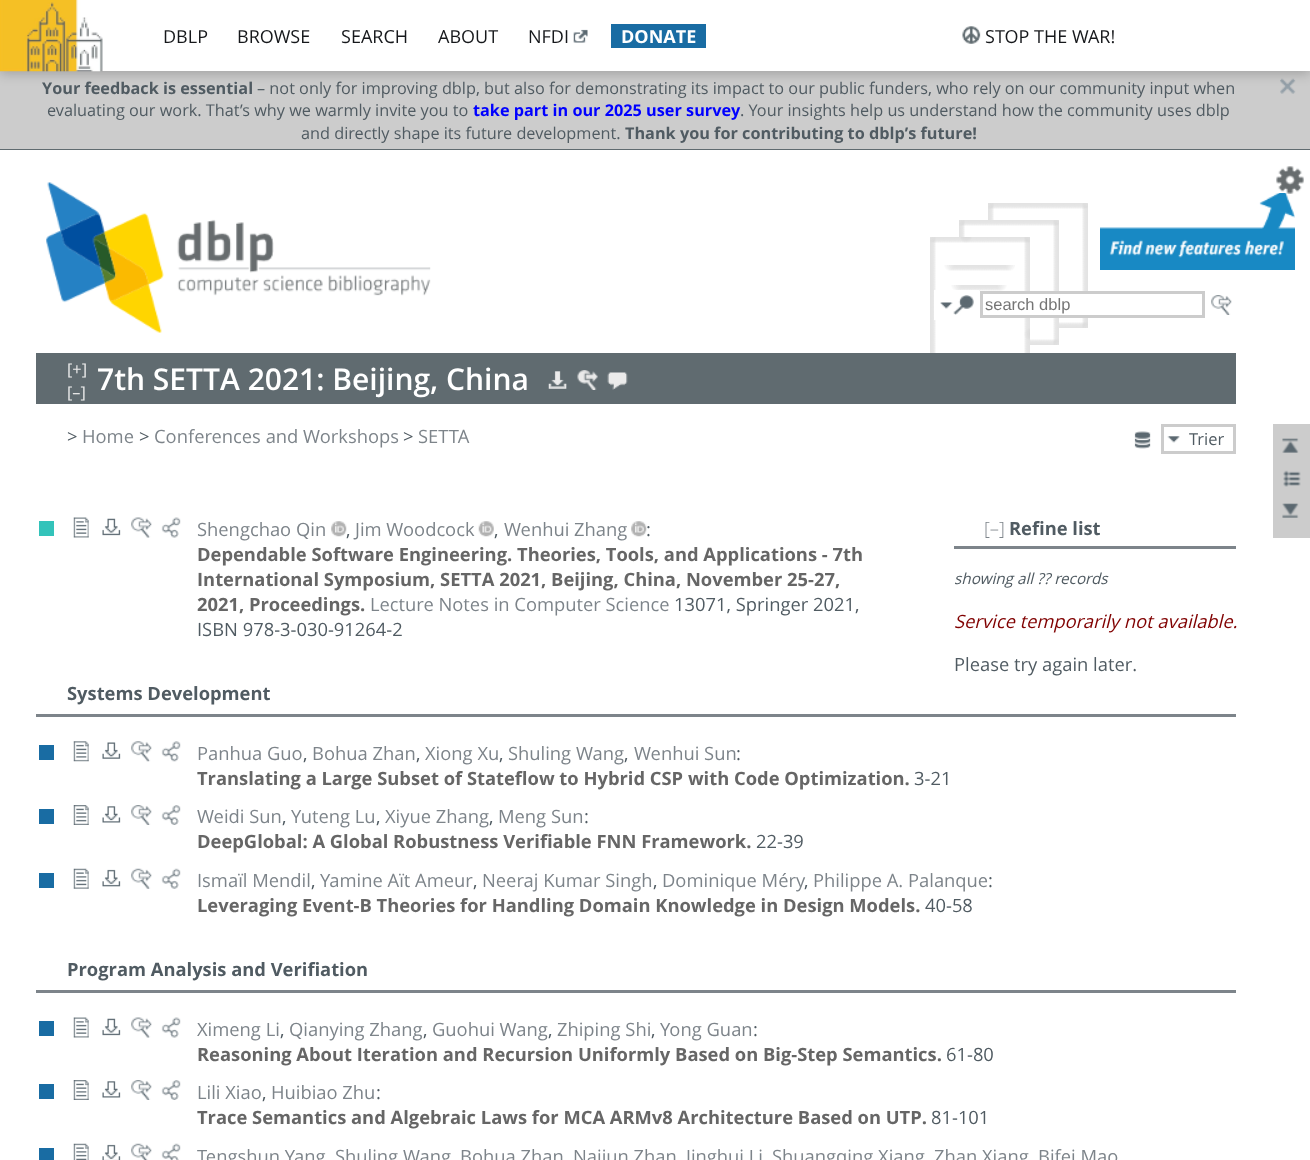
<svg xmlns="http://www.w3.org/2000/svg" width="1310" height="1160">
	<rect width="100%" height="100%" fill="#CCCCCC" />
	<image x="1280" y="78" width="16" height="16" href="assets/img4.png" />
	<rect x="0" y="3" width="1310" height="71" fill="#000000" fill-opacity="0.2" filter="blur(6px)" />
	<rect x="102" y="0" width="1208" height="71" fill="#FFFFFF" />
	<image x="0" y="0" width="103" height="72" href="assets/img1.png" />
	<g font-family="Open Sans" font-size="18" fill="#16181B">
		<text x="163" y="43">DBLP</text>
		<text x="237" y="43">BROWSE</text>
		<text x="341" y="43">SEARCH</text>
		<text x="438" y="43">ABOUT</text>
		<text x="528" y="43">NFDI</text>
	</g>
	<image x="573" y="29" width="15" height="14" href="assets/img2.png" />
	<rect x="611" y="24" width="95" height="24" fill="#196CA3" />
	<text x="621" y="43" font-family="Open Sans" font-size="18" font-weight="700" fill="#FFFFFF">DONATE</text>
	<image x="962" y="26" width="19" height="18" href="assets/img3.png" />
	<text x="985" y="43" font-family="Open Sans" font-size="18" fill="#16181B">STOP THE WAR!</text>
	<rect x="0" y="149" width="1310" height="1" fill="#606B70" />
	<text x="42" y="94" font-family="Open Sans" font-size="16.25" font-weight="700" fill="#505B62">Your feedback is essential</text>
	<g font-family="Open Sans" font-size="16.25" fill="#505B62">
		<text x="257" y="94">– not only for improving dblp, but also for demonstrating its impact to our public funders, who rely on our community input when</text>
		<text x="47" y="116">evaluating our work. That’s why we warmly invite you to</text>
	</g>
	<text x="473" y="116" font-family="Open Sans" font-size="16.25" font-weight="700" fill="#0000FF">take part in our 2025 user survey</text>
	<g font-family="Open Sans" font-size="16.25" fill="#505B62">
		<text x="740" y="116">. Your insights help us understand how the community uses dblp</text>
		<text x="301" y="139">and directly shape its future development.</text>
	</g>
	<text x="625" y="139" font-family="Open Sans" font-size="16.25" font-weight="700" fill="#505B62">Thank you for contributing to dblp’s future!</text>
	<rect x="0" y="150" width="1310" height="1010" fill="#FFFFFF" />
	<image x="930" y="203" width="158" height="150" href="assets/img5.png" />
	<image x="46" y="182" width="385" height="151" href="assets/img6.png" />
	<image x="1100" y="193" width="195" height="77" href="assets/img8.png" />
	<image x="1276" y="166" width="28" height="28" href="assets/img7.png" />
	<rect x="934" y="290" width="45" height="30" fill="#FFFFFF" />
	<image x="940" y="302" width="13" height="7" href="assets/img9.png" />
	<image x="953" y="295" width="21" height="20" href="assets/img10.png" />
	<rect x="1024" y="294" width="64" height="21" fill="#FFFFFF" />
	<rect x="981.5" y="292.5" width="222" height="24" fill="none" stroke="#CCCCCC" stroke-width="3" />
	<text x="985" y="310" font-family="Liberation Sans" font-size="16.5" fill="#757575">search dblp</text>
	<image x="1211" y="295" width="21" height="20" href="assets/img11.png" />
	<rect x="36" y="353" width="1200" height="51" fill="#606B70" />
	<g font-family="Open Sans" font-size="16.25" fill="#EBEBEB">
		<text x="67" y="375">[+]</text>
		<text x="67" y="398">[–]</text>
	</g>
	<text x="97" y="390" font-family="Open Sans" font-size="30" font-weight="600" fill="#FFFFFF">7th SETTA 2021: Beijing, China</text>
	<image x="548" y="371" width="19" height="18" href="assets/img12.png" />
	<image x="577" y="370" width="21" height="20" href="assets/img13.png" />
	<image x="607" y="372" width="21" height="18" href="assets/img14.png" />
	<text x="67" y="443" font-family="Open Sans" font-size="18.35" fill="#505B62">&gt;</text>
	<text x="82" y="443" font-family="Open Sans" font-size="18.35" fill="#7D848A">Home</text>
	<text x="139" y="443" font-family="Open Sans" font-size="18.35" fill="#505B62">&gt;</text>
	<text x="154" y="443" font-family="Open Sans" font-size="18.35" fill="#7D848A">Conferences and Workshops</text>
	<text x="403" y="443" font-family="Open Sans" font-size="18.35" fill="#505B62">&gt;</text>
	<text x="418" y="443" font-family="Open Sans" font-size="18.35" fill="#7D848A">SETTA</text>
	<image x="1134" y="431" width="17" height="18" href="assets/img15.png" />
	<image x="1167" y="436" width="13" height="7" href="assets/img16.png" />
	<rect x="1162.5" y="425.5" width="72" height="27" fill="none" stroke="#CCCCCC" stroke-width="3" />
	<text x="1189" y="445" font-family="Open Sans" font-size="16.5" fill="#505B62">Trier</text>
	<rect x="1273" y="424" width="37" height="114" fill="#CCCCCC" />
	<image x="1282" y="438" width="17" height="15" href="assets/img17.png" />
	<image x="1283" y="470" width="18" height="17" href="assets/img18.png" />
	<image x="1282" y="503" width="17" height="15" href="assets/img19.png" />
	<rect x="39" y="521" width="15" height="15" fill="#33C3BA" />
	<image x="73" y="517" width="16" height="21" href="assets/img20.png" />
	<image x="102" y="518" width="19" height="18" href="assets/img21.png" />
	<image x="131" y="517" width="21" height="21" href="assets/img22.png" />
	<image x="161" y="517" width="20" height="21" href="assets/img23.png" />
	<text x="197" y="536" font-family="Open Sans" font-size="18.35" fill="#7D848A">Shengchao Qin</text>
	<image x="331" y="521" width="16" height="16" href="assets/img24.png" />
	<text x="346" y="536" font-family="Open Sans" font-size="18.35" fill="#505B62">,</text>
	<text x="355" y="536" font-family="Open Sans" font-size="18.35" fill="#7D848A">Jim Woodcock</text>
	<image x="478" y="521" width="16" height="16" href="assets/img25.png" />
	<text x="494" y="536" font-family="Open Sans" font-size="18.35" fill="#505B62">,</text>
	<text x="504" y="536" font-family="Open Sans" font-size="18.35" fill="#7D848A">Wenhui Zhang</text>
	<image x="631" y="521" width="16" height="16" href="assets/img24.png" />
	<text x="646" y="536" font-family="Open Sans" font-size="18.35" fill="#505B62">:</text>
	<g font-family="Open Sans" font-size="18.35" font-weight="700" fill="#666666">
		<text x="197" y="561">Dependable Software Engineering. Theories, Tools, and Applications - 7th</text>
		<text x="197" y="586">International Symposium, SETTA 2021, Beijing, China, November 25-27,</text>
		<text x="197" y="611">2021, Proceedings.</text>
	</g>
	<text x="370" y="611" font-family="Open Sans" font-size="18.35" fill="#7D848A">Lecture Notes in Computer Science</text>
	<g font-family="Open Sans" font-size="18.35" fill="#505B62">
		<text x="674" y="611">13071, Springer 2021,</text>
		<text x="197" y="636">ISBN 978-3-030-91264-2</text>
	</g>
	<rect x="954" y="546" width="282" height="3" fill="#7D848A" />
	<text x="984" y="535" font-family="Open Sans" font-size="18.35" font-weight="300" fill="#7D848A">[–]</text>
	<text x="1009" y="535" font-family="Open Sans" font-size="18.35" font-weight="700" fill="#505B62">Refine list</text>
	<text x="954" y="584" font-family="Open Sans" font-size="15.25" font-style="italic" fill="#505B62">showing all ?? records</text>
	<text x="954" y="628" font-family="Open Sans" font-size="18.35" font-style="italic" fill="#800000">Service temporarily not available.</text>
	<text x="954" y="671" font-family="Open Sans" font-size="18.35" fill="#505B62">Please try again later.</text>
	<rect x="36" y="714" width="1200" height="3" fill="#7D848A" />
	<text x="67" y="700" font-family="Open Sans" font-size="18.35" font-weight="700" fill="#505B62">Systems Development</text>
	<rect x="39" y="745" width="15" height="15" fill="#196CA3" />
	<image x="73" y="741" width="16" height="21" href="assets/img26.png" />
	<image x="102" y="742" width="19" height="17" href="assets/img27.png" />
	<image x="131" y="741" width="21" height="21" href="assets/img28.png" />
	<image x="161" y="741" width="20" height="21" href="assets/img29.png" />
	<text x="197" y="760" font-family="Open Sans" font-size="18.35" fill="#7D848A">Panhua Guo</text>
	<text x="303" y="760" font-family="Open Sans" font-size="18.35" fill="#505B62">,</text>
	<text x="312" y="760" font-family="Open Sans" font-size="18.35" fill="#7D848A">Bohua Zhan</text>
	<text x="416" y="760" font-family="Open Sans" font-size="18.35" fill="#505B62">,</text>
	<text x="425" y="760" font-family="Open Sans" font-size="18.35" fill="#7D848A">Xiong Xu</text>
	<text x="499" y="760" font-family="Open Sans" font-size="18.35" fill="#505B62">,</text>
	<text x="508" y="760" font-family="Open Sans" font-size="18.35" fill="#7D848A">Shuling Wang</text>
	<text x="624" y="760" font-family="Open Sans" font-size="18.35" fill="#505B62">,</text>
	<text x="634" y="760" font-family="Open Sans" font-size="18.35" fill="#7D848A">Wenhui Sun</text>
	<text x="736" y="760" font-family="Open Sans" font-size="18.35" fill="#505B62">:</text>
	<text x="197" y="785" font-family="Open Sans" font-size="18.35" font-weight="700" fill="#666666">Translating a Large Subset of Stateflow to Hybrid CSP with Code Optimization.</text>
	<text x="914" y="785" font-family="Open Sans" font-size="18.35" fill="#505B62">3-21</text>
	<rect x="39" y="809" width="15" height="15" fill="#196CA3" />
	<image x="73" y="805" width="16" height="20" href="assets/img30.png" />
	<image x="102" y="806" width="19" height="17" href="assets/img31.png" />
	<image x="131" y="805" width="21" height="20" href="assets/img11.png" />
	<image x="161" y="805" width="20" height="20" href="assets/img32.png" />
	<text x="197" y="823" font-family="Open Sans" font-size="18.35" fill="#7D848A">Weidi Sun</text>
	<text x="282" y="823" font-family="Open Sans" font-size="18.35" fill="#505B62">,</text>
	<text x="291" y="823" font-family="Open Sans" font-size="18.35" fill="#7D848A">Yuteng Lu</text>
	<text x="376" y="823" font-family="Open Sans" font-size="18.35" fill="#505B62">,</text>
	<text x="385" y="823" font-family="Open Sans" font-size="18.35" fill="#7D848A">Xiyue Zhang</text>
	<text x="489" y="823" font-family="Open Sans" font-size="18.35" fill="#505B62">,</text>
	<text x="498" y="823" font-family="Open Sans" font-size="18.35" fill="#7D848A">Meng Sun</text>
	<text x="584" y="823" font-family="Open Sans" font-size="18.35" fill="#505B62">:</text>
	<text x="197" y="848" font-family="Open Sans" font-size="18.35" font-weight="700" fill="#666666">DeepGlobal: A Global Robustness Verifiable FNN Framework.</text>
	<text x="756" y="848" font-family="Open Sans" font-size="18.35" fill="#505B62">22-39</text>
	<rect x="39" y="873" width="15" height="15" fill="#196CA3" />
	<image x="73" y="868" width="16" height="21" href="assets/img33.png" />
	<image x="102" y="869" width="19" height="18" href="assets/img34.png" />
	<image x="131" y="868" width="21" height="21" href="assets/img35.png" />
	<image x="161" y="868" width="20" height="21" href="assets/img36.png" />
	<text x="197" y="887" font-family="Open Sans" font-size="18.35" fill="#7D848A">Ismaïl Mendil</text>
	<text x="311" y="887" font-family="Open Sans" font-size="18.35" fill="#505B62">,</text>
	<text x="320" y="887" font-family="Open Sans" font-size="18.35" fill="#7D848A">Yamine Aït Ameur</text>
	<text x="473" y="887" font-family="Open Sans" font-size="18.35" fill="#505B62">,</text>
	<text x="482" y="887" font-family="Open Sans" font-size="18.35" fill="#7D848A">Neeraj Kumar Singh</text>
	<text x="653" y="887" font-family="Open Sans" font-size="18.35" fill="#505B62">,</text>
	<text x="662" y="887" font-family="Open Sans" font-size="18.35" fill="#7D848A">Dominique Méry</text>
	<text x="804" y="887" font-family="Open Sans" font-size="18.35" fill="#505B62">,</text>
	<text x="813" y="887" font-family="Open Sans" font-size="18.35" fill="#7D848A">Philippe A. Palanque</text>
	<text x="988" y="887" font-family="Open Sans" font-size="18.35" fill="#505B62">:</text>
	<text x="197" y="912" font-family="Open Sans" font-size="18.35" font-weight="700" fill="#666666">Leveraging Event-B Theories for Handling Domain Knowledge in Design Models.</text>
	<text x="925" y="912" font-family="Open Sans" font-size="18.35" fill="#505B62">40-58</text>
	<rect x="36" y="990" width="1200" height="3" fill="#7D848A" />
	<text x="67" y="976" font-family="Open Sans" font-size="18.35" font-weight="700" fill="#505B62">Program Analysis and Verifiation</text>
	<rect x="39" y="1021" width="15" height="15" fill="#196CA3" />
	<image x="73" y="1017" width="16" height="21" href="assets/img20.png" />
	<image x="102" y="1018" width="19" height="18" href="assets/img21.png" />
	<image x="131" y="1017" width="21" height="21" href="assets/img22.png" />
	<image x="161" y="1017" width="20" height="21" href="assets/img23.png" />
	<text x="197" y="1036" font-family="Open Sans" font-size="18.35" fill="#7D848A">Ximeng Li</text>
	<text x="280" y="1036" font-family="Open Sans" font-size="18.35" fill="#505B62">,</text>
	<text x="289" y="1036" font-family="Open Sans" font-size="18.35" fill="#7D848A">Qianying Zhang</text>
	<text x="423" y="1036" font-family="Open Sans" font-size="18.35" fill="#505B62">,</text>
	<text x="432" y="1036" font-family="Open Sans" font-size="18.35" fill="#7D848A">Guohui Wang</text>
	<text x="548" y="1036" font-family="Open Sans" font-size="18.35" fill="#505B62">,</text>
	<text x="557" y="1036" font-family="Open Sans" font-size="18.35" fill="#7D848A">Zhiping Shi</text>
	<text x="651" y="1036" font-family="Open Sans" font-size="18.35" fill="#505B62">,</text>
	<text x="660" y="1036" font-family="Open Sans" font-size="18.35" fill="#7D848A">Yong Guan</text>
	<text x="753" y="1036" font-family="Open Sans" font-size="18.35" fill="#505B62">:</text>
	<text x="197" y="1061" font-family="Open Sans" font-size="18.35" font-weight="700" fill="#666666">Reasoning About Iteration and Recursion Uniformly Based on Big-Step Semantics.</text>
	<text x="946" y="1061" font-family="Open Sans" font-size="18.35" fill="#505B62">61-80</text>
	<rect x="39" y="1084" width="15" height="15" fill="#196CA3" />
	<image x="73" y="1080" width="16" height="20" href="assets/img30.png" />
	<image x="102" y="1081" width="19" height="17" href="assets/img31.png" />
	<image x="131" y="1080" width="21" height="20" href="assets/img11.png" />
	<image x="161" y="1080" width="20" height="20" href="assets/img32.png" />
	<text x="197" y="1099" font-family="Open Sans" font-size="18.35" fill="#7D848A">Lili Xiao</text>
	<text x="262" y="1099" font-family="Open Sans" font-size="18.35" fill="#505B62">,</text>
	<text x="271" y="1099" font-family="Open Sans" font-size="18.35" fill="#7D848A">Huibiao Zhu</text>
	<text x="376" y="1099" font-family="Open Sans" font-size="18.35" fill="#505B62">:</text>
	<text x="197" y="1124" font-family="Open Sans" font-size="18.35" font-weight="700" fill="#666666">Trace Semantics and Algebraic Laws for MCA ARMv8 Architecture Based on UTP.</text>
	<text x="931" y="1124" font-family="Open Sans" font-size="18.35" fill="#505B62">81-101</text>
	<rect x="39" y="1148" width="15" height="12" fill="#196CA3" />
	<image x="73" y="1143" width="16" height="17" href="assets/img37.png" />
	<image x="102" y="1144" width="19" height="16" href="assets/img38.png" />
	<image x="131" y="1143" width="21" height="17" href="assets/img39.png" />
	<image x="161" y="1143" width="20" height="17" href="assets/img40.png" />
	<g font-family="Open Sans" font-size="18.35" fill="#7D848A">
		<text x="197" y="1163">Tengshun Yang</text>
		<text x="335" y="1163">Shuling Wang</text>
		<text x="460" y="1163">Bohua Zhan</text>
		<text x="573" y="1163">Naijun Zhan</text>
		<text x="686" y="1163">Jinghui Li</text>
		<text x="772" y="1163">Shuangqing Xiang</text>
		<text x="934" y="1163">Zhan Xiang</text>
		<text x="1038" y="1163">Bifei Mao</text>
	</g>
</svg>
